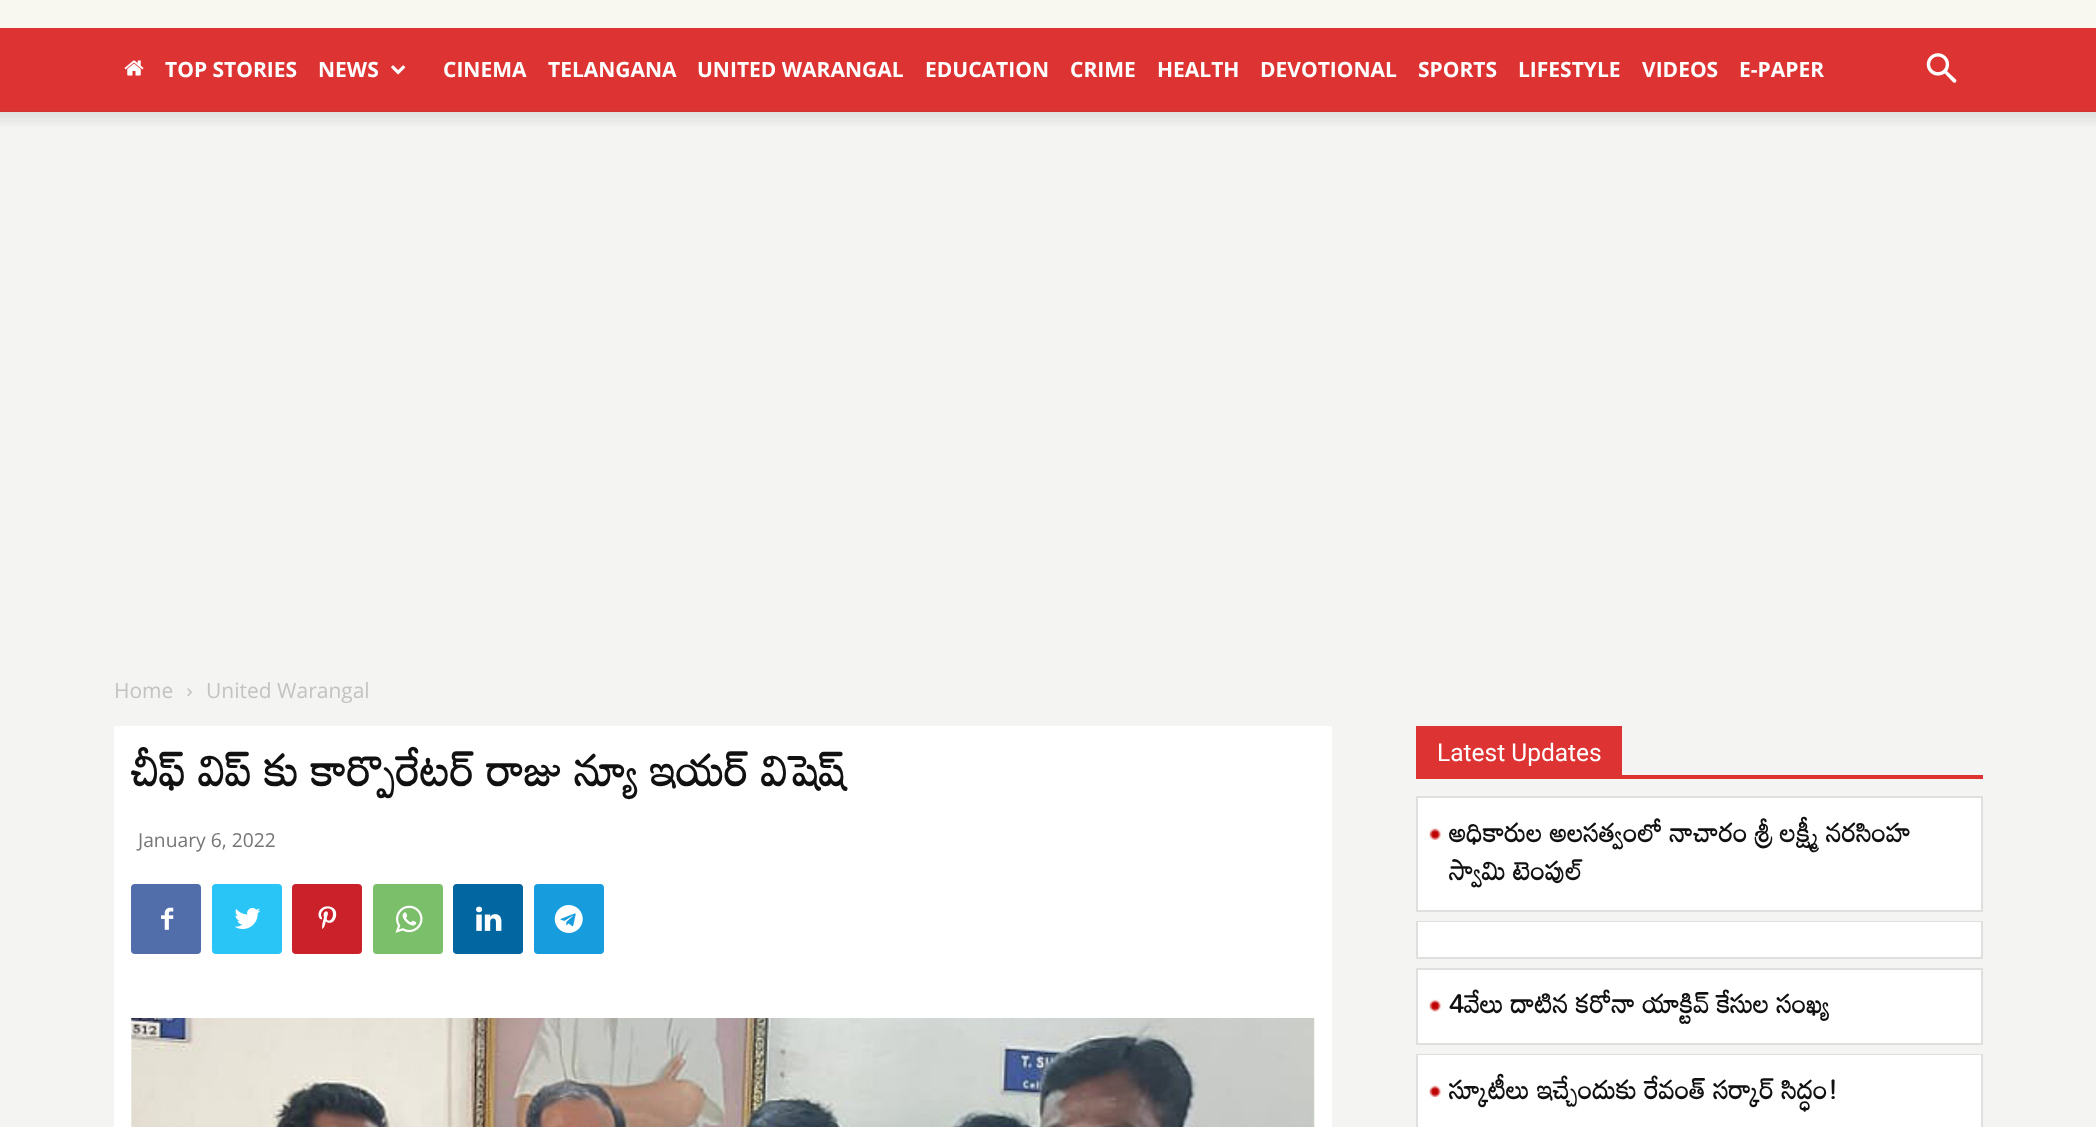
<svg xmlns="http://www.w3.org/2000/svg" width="2096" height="1127">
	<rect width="100%" height="100%" fill="#F4F4F2" />
	<rect x="0" y="0" width="2096" height="28" fill="#F9F8F0" />
	<rect x="0" y="28" width="2096" height="84" fill="#DD3333" />
	<image x="124" y="60" width="20" height="16" href="assets/img1.png" />
	<g font-family="Open Sans" font-size="21" font-weight="700" fill="#FFFFFF">
		<text x="165" y="77">TOP STORIES</text>
		<text x="318" y="77">NEWS</text>
	</g>
	<image x="391" y="65" width="15" height="10" href="assets/img2.png" />
	<g font-family="Open Sans" font-size="21" font-weight="700" fill="#FFFFFF">
		<text x="443" y="77">CINEMA</text>
		<text x="548" y="77">TELANGANA</text>
		<text x="697" y="77">UNITED WARANGAL</text>
		<text x="925" y="77">EDUCATION</text>
		<text x="1070" y="77">CRIME</text>
		<text x="1157" y="77">HEALTH</text>
		<text x="1260" y="77">DEVOTIONAL</text>
		<text x="1418" y="77">SPORTS</text>
		<text x="1518" y="77">LIFESTYLE</text>
		<text x="1642" y="77">VIDEOS</text>
		<text x="1739" y="77">E-PAPER</text>
	</g>
	<image x="1926" y="53" width="31" height="30" href="assets/img3.png" />
	<image x="0" y="111" width="2096" height="15" href="assets/img4.png" />
	<text x="114" y="698" font-family="Open Sans" font-size="21" fill="#C3C3C3">Home</text>
	<image x="187" y="688" width="5" height="9" href="assets/img5.png" />
	<text x="206" y="698" font-family="Open Sans" font-size="21" fill="#C3C3C3">United Warangal</text>
	<rect x="114" y="726" width="1218" height="401" fill="#FFFFFF" />
	<text x="131" y="786" font-family="Mandali" font-size="43.75" font-weight="700" fill="#111111">చీఫ్ విప్ కు కార్పొరేటర్ రాజు న్యూ ఇయర్ విషెష్</text>
	<text x="138" y="847" font-family="Open Sans" font-size="19.25" fill="#767676">January 6, 2022</text>
	<rect x="131" y="884" width="70" height="70" rx="4" fill="#516EAB" />
	<image x="161" y="907" width="13" height="23" href="assets/img6.png" />
	<rect x="212" y="884" width="70" height="70" rx="4" fill="#29C5F6" />
	<image x="234" y="908" width="27" height="21" href="assets/img7.png" />
	<rect x="292" y="884" width="70" height="70" rx="4" fill="#CA212A" />
	<image x="318" y="906" width="19" height="23" href="assets/img8.png" />
	<rect x="373" y="884" width="70" height="70" rx="4" fill="#7BBF6A" />
	<image x="395" y="905" width="28" height="28" href="assets/img9.png" />
	<rect x="453" y="884" width="70" height="70" rx="4" fill="#0266A0" />
	<image x="476" y="906" width="26" height="25" href="assets/img10.png" />
	<rect x="534" y="884" width="70" height="70" rx="4" fill="#179CDE" />
	<image x="554" y="905" width="29" height="28" href="assets/img11.png" />
	<image x="131" y="1018" width="1184" height="109" href="assets/img12.png" />
	<rect x="1416" y="775" width="567" height="4" fill="#DD3333" />
	<rect x="1416" y="726" width="206" height="49" fill="#DD3333" />
	<text x="1437" y="761" font-family="Roboto" font-size="24.5" fill="#FFFFFF">Latest Updates</text>
	<rect x="1417" y="797" width="565" height="114" fill="none" stroke="#DFDFDD" stroke-width="2" />
	<rect x="1418" y="798" width="563" height="112" fill="#FFFFFF" />
	<image x="1429" y="828" width="12" height="12" href="assets/img13.png" />
	<g font-family="Mandali" font-size="26.25" font-weight="700" fill="#111111">
		<text x="1449" y="842">అధికారుల అలసత్వంలో నాచారం శ్రీ లక్ష్మీ నరసింహ</text>
		<text x="1449" y="880">స్వామి టెంపుల్</text>
	</g>
	<rect x="1417" y="922" width="565" height="36" fill="none" stroke="#DFDFDD" stroke-width="2" />
	<rect x="1418" y="922" width="563" height="35" fill="#FFFFFF" />
	<rect x="1417" y="969" width="565" height="75" fill="none" stroke="#DFDFDD" stroke-width="2" />
	<rect x="1418" y="970" width="563" height="73" fill="#FFFFFF" />
	<image x="1429" y="999" width="12" height="13" href="assets/img14.png" />
	<text x="1449" y="1013" font-family="Mandali" font-size="26.25" font-weight="700" fill="#111111">4వేలు దాటిన కరోనా యాక్టివ్ కేసుల సంఖ్య</text>
	<rect x="1417" y="1055" width="565" height="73" fill="none" stroke="#DFDFDD" stroke-width="2" />
	<rect x="1418" y="1055" width="563" height="72" fill="#FFFFFF" />
	<image x="1429" y="1085" width="12" height="12" href="assets/img15.png" />
	<text x="1449" y="1099" font-family="Mandali" font-size="26.25" font-weight="700" fill="#111111">స్కూటీలు ఇచ్చేందుకు రేవంత్ సర్కార్ సిద్ధం!</text>
</svg>
